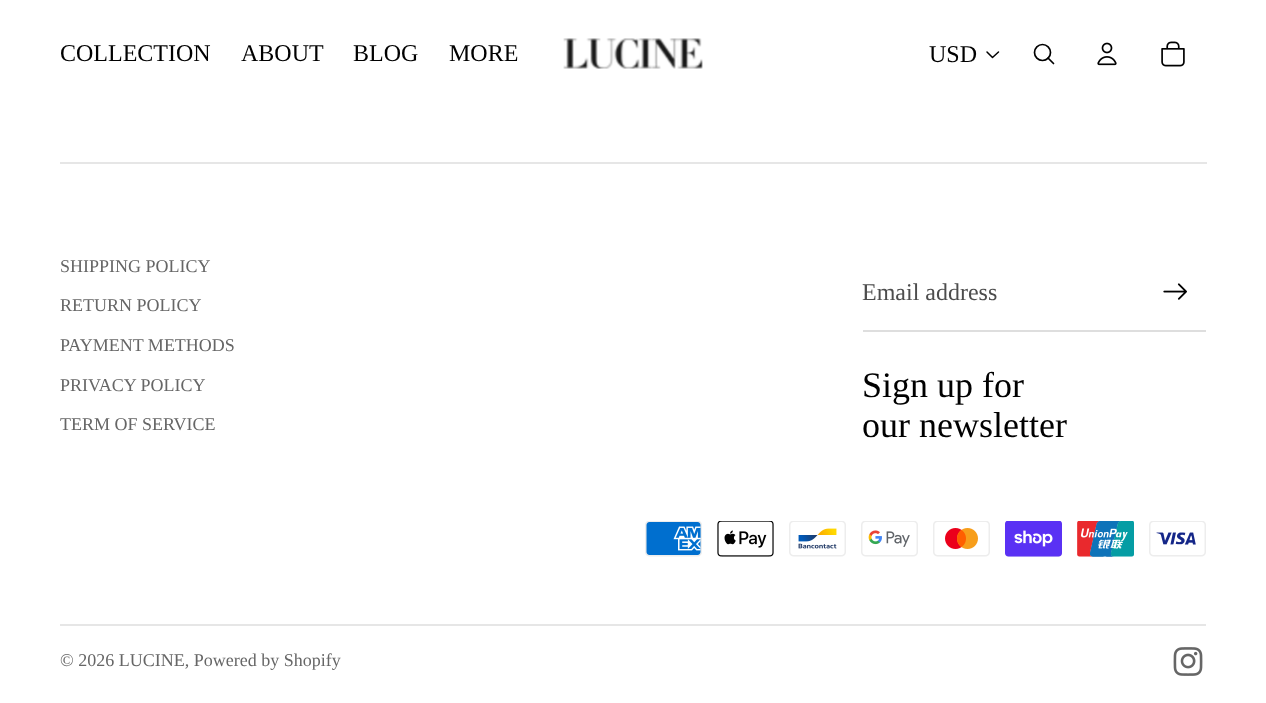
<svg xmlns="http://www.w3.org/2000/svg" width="1266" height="703">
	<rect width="100%" height="100%" fill="#FFFFFF" />
	<g font-family="Liberation Serif" font-size="24" fill="#000000">
		<text x="60" y="61">COLLECTION</text>
		<text x="241" y="61">ABOUT</text>
		<text x="353" y="61">BLOG</text>
		<text x="449" y="61">MORE</text>
	</g>
	<image x="563" y="38" width="140" height="31" href="assets/img1.png" />
	<text x="929" y="62" font-family="Liberation Serif" font-size="24" fill="#000000">USD</text>
	<path d="M998.5 52L992.5 57.5L987 52" fill="none" stroke="#000000" stroke-width="1.5" stroke-linecap="round" stroke-linejoin="round" />
	<circle cx="1042.5" cy="52.5" r="8" fill="none" stroke="#000000" stroke-width="1.7" />
	<path d="M1048 58L1053.5 63.5" fill="none" stroke="#000000" stroke-width="1.7" stroke-linecap="round" stroke-linejoin="round" />
	<image x="1097" y="42" width="20" height="24" href="assets/img2.png" />
	<image x="1161" y="41" width="24" height="26" href="assets/img3.png" />
	<rect x="60" y="162" width="1147" height="2" fill="#E6E6E6" />
	<g font-family="Liberation Serif" font-size="18" fill="#666666">
		<text x="60" y="272">SHIPPING POLICY</text>
		<text x="60" y="311">RETURN POLICY</text>
		<text x="60" y="351">PAYMENT METHODS</text>
		<text x="60" y="391">PRIVACY POLICY</text>
		<text x="60" y="430">TERM OF SERVICE</text>
	</g>
	<rect x="863" y="330" width="343" height="2" fill="#DEDEDE" />
	<text x="862" y="300" font-family="Liberation Serif" font-size="24" fill="#4D4D4D">Email address</text>
	<image x="1163" y="283" width="24" height="17" href="assets/img4.png" />
	<g font-family="Liberation Serif" font-size="36" fill="#000000">
		<text x="862" y="397">Sign up for</text>
		<text x="862" y="437">our newsletter</text>
	</g>
	<image x="645" y="521" width="57" height="36" href="assets/img5.png" />
	<image x="717" y="521" width="57" height="36" href="assets/img6.png" />
	<image x="789" y="521" width="57" height="36" href="assets/img7.png" />
	<image x="861" y="521" width="57" height="36" href="assets/img8.png" />
	<image x="933" y="521" width="57" height="36" href="assets/img9.png" />
	<image x="1005" y="521" width="57" height="36" href="assets/img10.png" />
	<image x="1077" y="521" width="57" height="36" href="assets/img11.png" />
	<image x="1149" y="521" width="57" height="36" href="assets/img12.png" />
	<rect x="60" y="624" width="1146" height="2" fill="#E6E6E6" />
	<text x="60" y="666" font-family="Liberation Serif" font-size="18" fill="#666666">© 2026 LUCINE, Powered by Shopify</text>
	<image x="1173" y="647" width="30" height="29" href="assets/img13.png" />
</svg>
